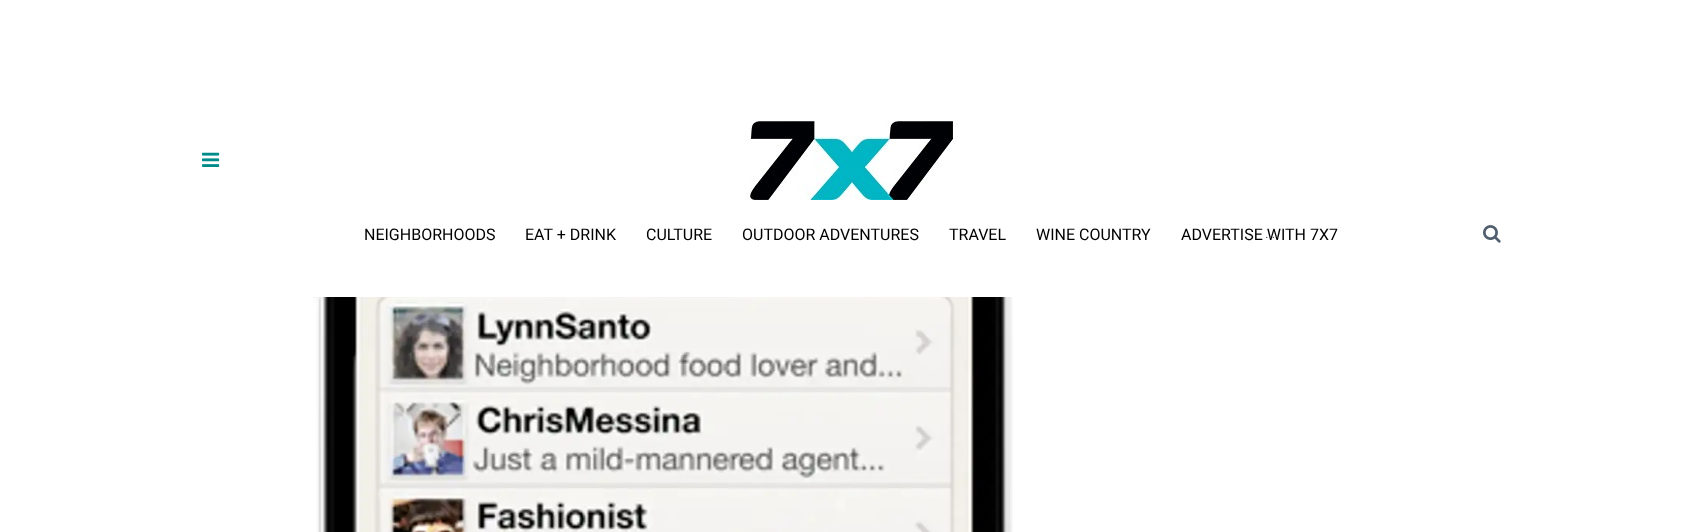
<svg xmlns="http://www.w3.org/2000/svg" width="1702" height="532">
	<rect width="100%" height="100%" fill="#FFFFFF" />
	<image x="202" y="152" width="18" height="15" href="assets/img1.png" />
	<image x="745" y="120" width="213" height="80" href="assets/img2.png" />
	<g font-family="Roboto" font-size="16" fill="#000000">
		<text x="364" y="240">NEIGHBORHOODS</text>
		<text x="525" y="240">EAT + DRINK</text>
		<text x="646" y="240">CULTURE</text>
		<text x="742" y="240">OUTDOOR ADVENTURES</text>
		<text x="949" y="240">TRAVEL</text>
		<text x="1036" y="240">WINE COUNTRY</text>
		<text x="1181" y="240">ADVERTISE WITH 7X7</text>
	</g>
	<image x="1483" y="225" width="18" height="18" href="assets/img3.png" />
	<text x="1265" y="238" font-family="Roboto" font-size="13" fill="#505E6D">...</text>
	<image x="313" y="297" width="700" height="235" href="assets/img4.png" />
</svg>
